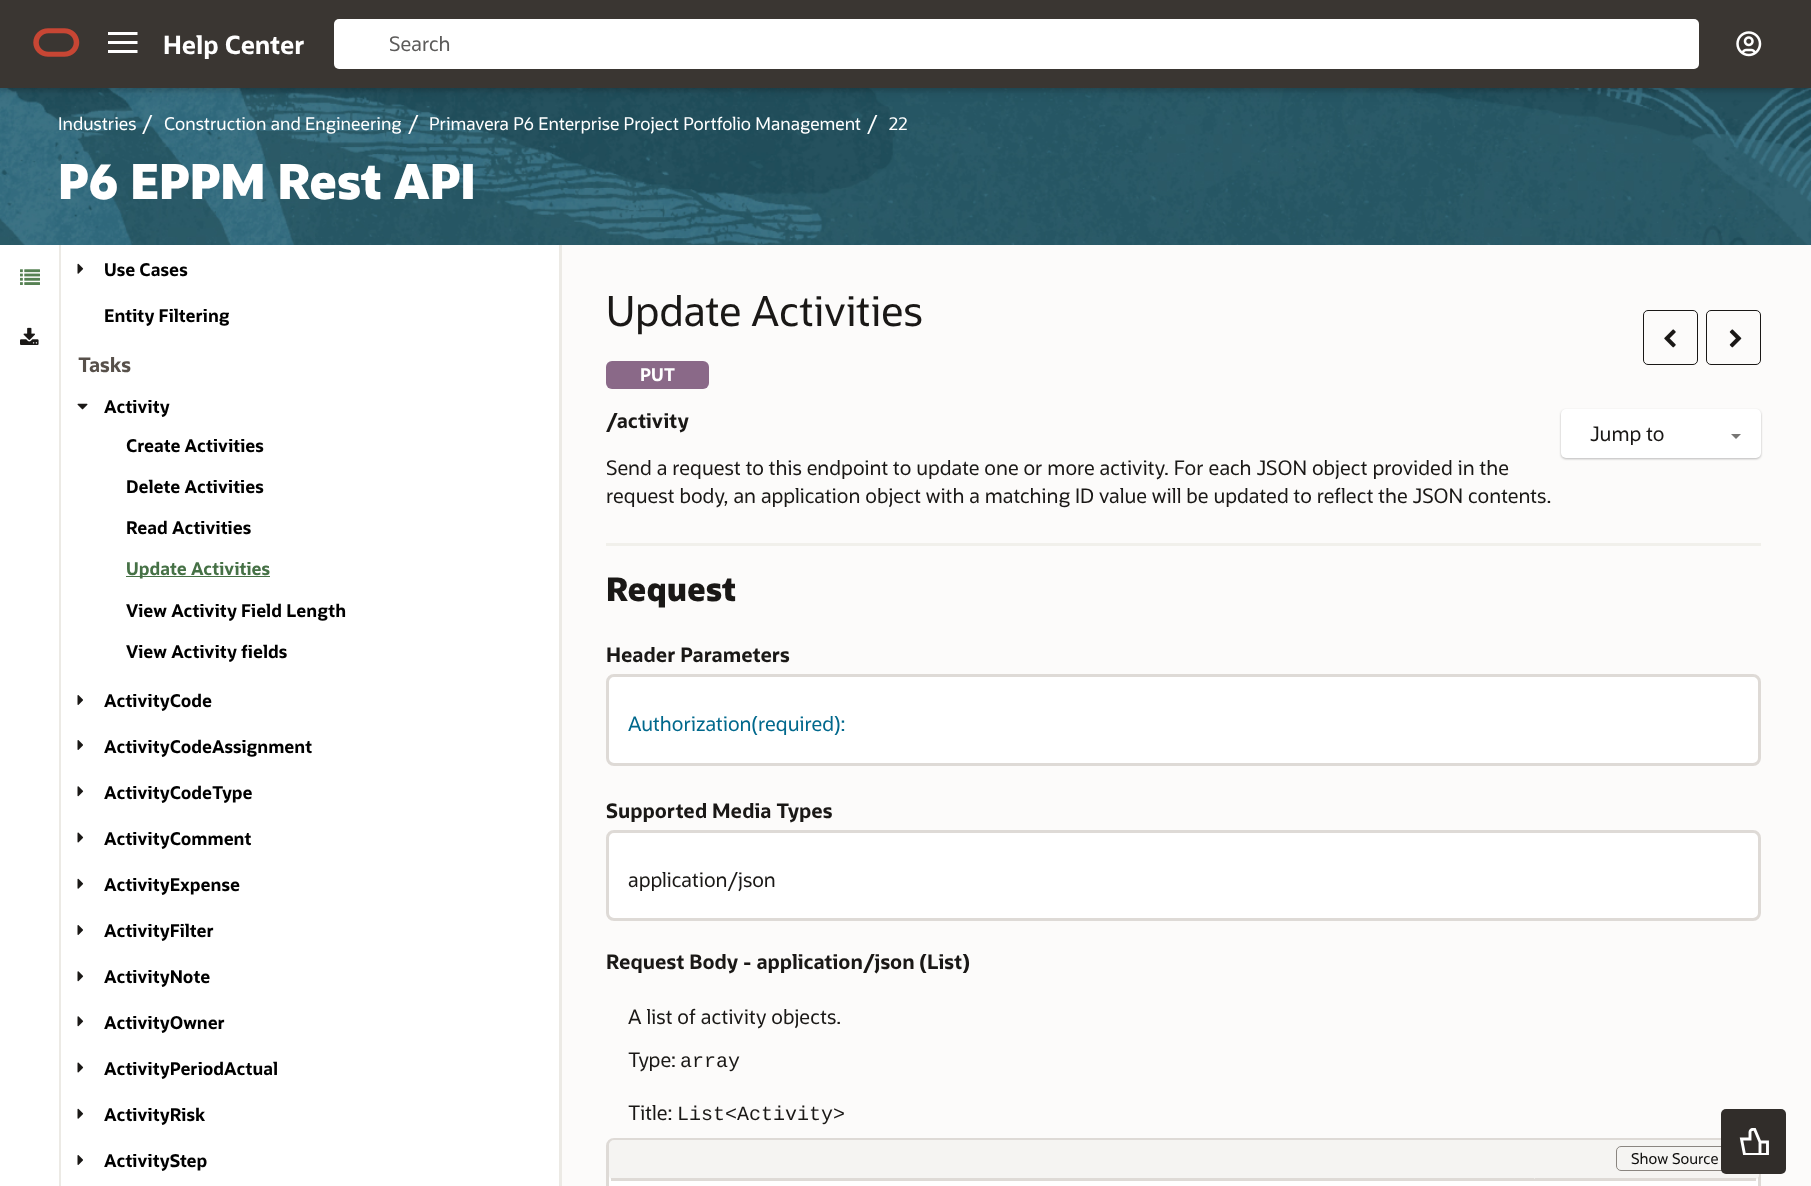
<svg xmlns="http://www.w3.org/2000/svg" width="1811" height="1186">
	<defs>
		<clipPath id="clip1"><rect x="108" y="28" width="30" height="30" /></clipPath>
		<linearGradient id="g1" gradientUnits="userSpaceOnUse" x1="906" y1="87" x2="906" y2="94"><stop offset="0" stop-color="#000000" stop-opacity="0.12" /><stop offset="1" stop-color="#000000" stop-opacity="0" /></linearGradient>
		<clipPath id="clip2"><rect x="1739" y="1128" width="30" height="27" /></clipPath>
	</defs>
	<rect width="100%" height="100%" fill="#FFFFFF" />
	<image x="0" y="88" width="1811" height="157" href="assets/img3.png" />
	<rect x="0" y="3" width="1811" height="87" fill="#000000" fill-opacity="0.15" filter="blur(6px)" />
	<rect x="0" y="0" width="1811" height="88" fill="#3A3632" />
	<image x="33" y="28" width="47" height="29" href="assets/img1.png" />
	<g clip-path="url(#clip1)">
		<path d="M107.5 33.5H137.5M107.5 42.5H137.5M107.5 51.5H137.5" fill="none" stroke="#FFFFFF" stroke-width="3" />
	</g>
	<text x="163" y="54" font-family="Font" font-size="25" font-weight="700" fill="#FFFFFF">Help Center</text>
	<rect x="334" y="19" width="1365" height="50" rx="5" fill="#FFFFFF" />
	<text x="389" y="51" font-family="Font" font-size="20" fill="#5C5B5A">Search</text>
	<image x="1736" y="31" width="26" height="26" href="assets/img2.png" />
	<rect x="0" y="88" width="1811" height="5" fill="url(#g1)" />
	<text x="58" y="130" font-family="Font" font-size="17.5" fill="#FFFFFF">Industries</text>
	<text x="142" y="130" font-family="Font" font-size="20" fill="#FFFFFF">/</text>
	<text x="164" y="130" font-family="Font" font-size="17.5" fill="#FFFFFF">Construction and Engineering</text>
	<text x="408" y="130" font-family="Font" font-size="20" fill="#FFFFFF">/</text>
	<text x="429" y="130" font-family="Font" font-size="17.5" fill="#FFFFFF">Primavera P6 Enterprise Project Portfolio Management</text>
	<text x="867" y="130" font-family="Font" font-size="20" fill="#FFFFFF">/</text>
	<text x="889" y="130" font-family="Font" font-size="17.5" fill="#FFFFFF">22</text>
	<text x="58" y="199" font-family="Font" font-size="48.1" font-weight="800" fill="#FFFFFF">P6 EPPM Rest API</text>
	<rect x="562" y="245" width="1249" height="941" fill="#FCFBFA" />
	<rect x="59" y="245" width="2" height="941" fill="#ECEAE5" />
	<image x="20" y="269" width="20" height="16" href="assets/img4.png" />
	<image x="20" y="327" width="19" height="18" href="assets/img5.png" />
	<rect x="559" y="245" width="3" height="941" fill="#ECEAE5" />
	<image x="77" y="263" width="7" height="11" href="assets/img6.png" />
	<g font-family="Font" font-size="17.5" font-weight="700" fill="#000000">
		<text x="104" y="276">Use Cases</text>
		<text x="104" y="322">Entity Filtering</text>
	</g>
	<text x="78" y="372" font-family="Font" font-size="20" font-weight="700" fill="#57504A">Tasks</text>
	<image x="77" y="403" width="11" height="7" href="assets/img7.png" />
	<g font-family="Font" font-size="17.5" font-weight="700" fill="#000000">
		<text x="104" y="413">Activity</text>
		<text x="126" y="452">Create Activities</text>
		<text x="126" y="493">Delete Activities</text>
		<text x="126" y="534">Read Activities</text>
	</g>
	<rect x="126" y="576" width="144" height="1" fill="#467146" />
	<text x="126" y="575" font-family="Font" font-size="17.5" font-weight="700" fill="#467146">Update Activities</text>
	<g font-family="Font" font-size="17.5" font-weight="700" fill="#000000">
		<text x="126" y="617">View Activity Field Length</text>
		<text x="126" y="658">View Activity fields</text>
	</g>
	<image x="77" y="695" width="6" height="10" href="assets/img8.png" />
	<text x="104" y="707" font-family="Font" font-size="17.5" font-weight="700" fill="#000000">ActivityCode</text>
	<image x="77" y="740" width="6" height="10" href="assets/img8.png" />
	<text x="104" y="753" font-family="Font" font-size="17.5" font-weight="700" fill="#000000">ActivityCodeAssignment</text>
	<image x="77" y="786" width="7" height="11" href="assets/img9.png" />
	<text x="104" y="799" font-family="Font" font-size="17.5" font-weight="700" fill="#000000">ActivityCodeType</text>
	<image x="77" y="832" width="7" height="11" href="assets/img10.png" />
	<text x="104" y="845" font-family="Font" font-size="17.5" font-weight="700" fill="#000000">ActivityComment</text>
	<image x="77" y="878" width="7" height="11" href="assets/img6.png" />
	<text x="104" y="891" font-family="Font" font-size="17.5" font-weight="700" fill="#000000">ActivityExpense</text>
	<image x="77" y="925" width="6" height="10" href="assets/img8.png" />
	<text x="104" y="937" font-family="Font" font-size="17.5" font-weight="700" fill="#000000">ActivityFilter</text>
	<image x="77" y="971" width="7" height="11" href="assets/img9.png" />
	<text x="104" y="983" font-family="Font" font-size="17.5" font-weight="700" fill="#000000">ActivityNote</text>
	<image x="77" y="1016" width="7" height="11" href="assets/img9.png" />
	<text x="104" y="1029" font-family="Font" font-size="17.5" font-weight="700" fill="#000000">ActivityOwner</text>
	<image x="77" y="1062" width="7" height="11" href="assets/img10.png" />
	<text x="104" y="1075" font-family="Font" font-size="17.5" font-weight="700" fill="#000000">ActivityPeriodActual</text>
	<image x="77" y="1108" width="7" height="11" href="assets/img6.png" />
	<text x="104" y="1121" font-family="Font" font-size="17.5" font-weight="700" fill="#000000">ActivityRisk</text>
	<image x="77" y="1155" width="6" height="10" href="assets/img8.png" />
	<text x="104" y="1167" font-family="Font" font-size="17.5" font-weight="700" fill="#000000">ActivityStep</text>
	<text x="606" y="326" font-family="Font" font-size="41.25" fill="#1A1816">Update Activities</text>
	<rect x="1561" y="410" width="200" height="49" rx="5" fill="#1D1D1D" fill-opacity="0.3" filter="blur(1px)" />
	<rect x="1561" y="409" width="200" height="49" rx="5" fill="#FFFFFF" />
	<text x="1590" y="441" font-family="Font" font-size="20" fill="#1A1816">Jump to</text>
	<path d="M1731 434H1741L1736 439Z" fill="#777674" />
	<rect x="606" y="361" width="103" height="28" rx="6" fill="#8A6988" />
	<text x="640" y="381" font-family="Font" font-size="17.5" font-weight="700" fill="#FFFFFF">PUT</text>
	<text x="606" y="428" font-family="Font" font-size="20" font-weight="700" fill="#1A1816">/activity</text>
	<rect x="1643.5" y="310.5" width="54" height="54" rx="4.5" fill="none" stroke="#1A1816" />
	<image x="1664" y="329" width="12" height="19" href="assets/img11.png" />
	<rect x="1706.5" y="310.5" width="54" height="54" rx="4.5" fill="none" stroke="#1A1816" />
	<image x="1729" y="329" width="13" height="19" href="assets/img12.png" />
	<g font-family="Font" font-size="20" fill="#1A1816">
		<text x="606" y="475">Send a request to this endpoint to update one or more activity. For each JSON object provided in the</text>
		<text x="606" y="503">request body, an application object with a matching ID value will be updated to reflect the JSON contents.</text>
	</g>
	<rect x="606" y="543" width="1155" height="3" fill="#F1F0EB" />
	<text x="606" y="601" font-family="Font" font-size="32.5" font-weight="800" fill="#1A1816">Request</text>
	<text x="606" y="662" font-family="Font" font-size="20" font-weight="700" fill="#1A1816">Header Parameters</text>
	<rect x="607.5" y="675.5" width="1152" height="89" rx="6.5" fill="#FFFFFF" stroke="#DEDAD6" stroke-width="3" />
	<text x="628" y="731" font-family="Font" font-size="20" fill="#00688C">Authorization(required):</text>
	<text x="606" y="818" font-family="Font" font-size="20" font-weight="700" fill="#1A1816">Supported Media Types</text>
	<rect x="607.5" y="831.5" width="1152" height="88" rx="6.5" fill="#FFFFFF" stroke="#DEDAD6" stroke-width="3" />
	<text x="628" y="887" font-family="Font" font-size="20" fill="#1A1816">application/json</text>
	<text x="606" y="969" font-family="Font" font-size="20" font-weight="700" fill="#1A1816">Request Body - application/json (List)</text>
	<g font-family="Font" font-size="20" fill="#1A1816">
		<text x="628" y="1024">A list of activity objects.</text>
		<text x="628" y="1067">Type:</text>
	</g>
	<text x="680" y="1067" font-family="Liberation Mono" font-size="20" fill="#1A1816">array</text>
	<text x="628" y="1120" font-family="Font" font-size="20" fill="#1A1816">Title:</text>
	<text x="677" y="1120" font-family="Liberation Mono" font-size="20" fill="#1A1816">List&lt;Activity&gt;</text>
	<rect x="607.5" y="1139.5" width="1152" height="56" rx="6.5" fill="#FFFFFF" stroke="#DEDAD6" stroke-width="3" />
	<rect x="609" y="1140" width="1134" height="40" rx="5" fill="#F5F4F2" />
	<rect x="611" y="1178" width="924" height="3" fill="#DEDAD6" />
	<rect x="1533" y="1140" width="226" height="40" rx="5" fill="#F5F4F2" />
	<rect x="1535" y="1178" width="221" height="3" fill="#DEDAD6" />
	<rect x="1616.5" y="1146.5" width="116" height="24" rx="4.5" fill="none" stroke="#8A8580" />
	<text x="1631" y="1164" font-family="Font" font-size="15" fill="#0F0E0D">Show Source</text>
	<rect x="1721" y="1109" width="65" height="65" rx="5" fill="#312D2A" />
	<g clip-path="url(#clip2)">
		<path d="M1760 1142L1754.5 1129C1751 1129 1750 1131 1750 1132V1139H1741.5L1744.5 1154.5H1760M1760 1142H1767.5V1154.5H1760M1760 1142V1154.5" fill="none" stroke="#FFFFFF" stroke-width="2.9" />
	</g>
</svg>
